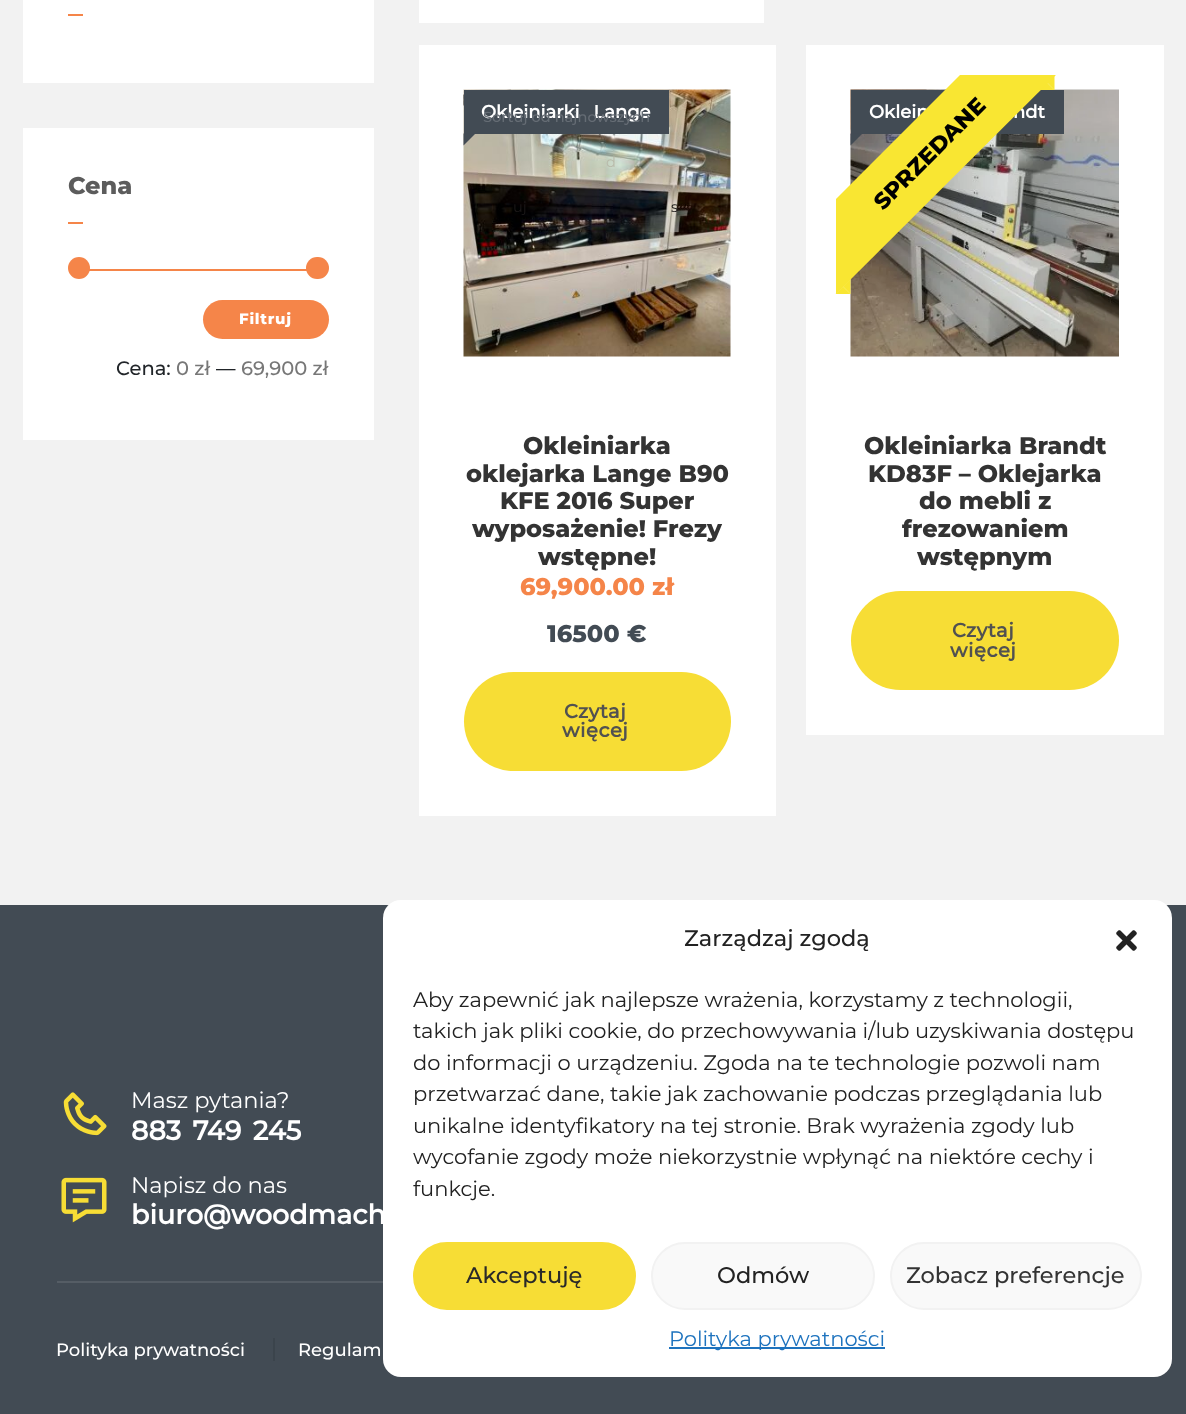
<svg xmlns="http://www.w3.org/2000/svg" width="1186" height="1414">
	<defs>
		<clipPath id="clip1"><rect x="836" y="75" width="225" height="225" /></clipPath>
	</defs>
	<rect width="100%" height="100%" fill="#F2F2F2" />
	<rect x="23" y="0" width="351" height="83" fill="#FFFFFF" />
	<rect x="68" y="14" width="15" height="2" fill="#F58549" />
	<rect x="23" y="128" width="351" height="312" fill="#FFFFFF" />
	<text x="68" y="194" font-family="Montserrat" font-size="24" font-weight="800" fill="#5C5C5C">Cena</text>
	<rect x="68" y="222" width="15" height="2" fill="#F58549" />
	<rect x="89" y="269" width="218" height="2" fill="#F58549" />
	<circle cx="79" cy="268" r="11" fill="#F58549" />
	<rect x="306" y="257" width="23" height="22" rx="11" fill="#F58549" />
	<rect x="203" y="300" width="126" height="39" rx="19.5" fill="#F58549" />
	<text x="239" y="324" font-family="Montserrat" font-size="15" font-weight="800" letter-spacing="0.75" fill="#FFFFFF">Filtruj</text>
	<text x="116" y="375" font-family="Montserrat" font-size="19.5" font-weight="500" fill="#212529">Cena:</text>
	<text x="176" y="375" font-family="Montserrat" font-size="19.5" font-weight="500" fill="#777777">0 zł</text>
	<text x="216" y="375" font-family="Montserrat" font-size="19.5" font-weight="500" fill="#212529">—</text>
	<text x="241" y="375" font-family="Montserrat" font-size="19.5" font-weight="500" fill="#777777">69,900 zł</text>
	<rect x="419" y="45" width="357" height="771" fill="#FFFFFF" />
	<image x="463" y="89" width="268" height="268" href="assets/img1.png" />
	<rect x="464" y="90" width="205" height="44" fill="#424B54" />
	<text x="481" y="118" word-spacing="9" font-family="Montserrat" font-size="18" font-weight="700" fill="#FFFFFF">Okleiniarki Lange</text>
	<path d="M463.5 145.5V133.5H475.5Z" fill="#424B54" />
	<g font-family="Montserrat" font-size="24" font-weight="800" fill="#333333">
		<text x="523" y="454">Okleiniarka</text>
		<text x="466" y="482">oklejarka Lange B90</text>
		<text x="500" y="509">KFE 2016 Super</text>
		<text x="472" y="537">wyposażenie! Frezy</text>
		<text x="538" y="565">wstępne!</text>
	</g>
	<text x="520" y="595" font-family="Montserrat" font-size="24" font-weight="800" fill="#F58549">69,900.00 zł</text>
	<text x="547" y="642" font-family="Montserrat" font-size="24" font-weight="800" fill="#424B54">16500 €</text>
	<rect x="464" y="672" width="267" height="99" rx="49.5" fill="#F7DD35" />
	<g font-family="Montserrat" font-size="19.5" font-weight="700" letter-spacing="0.5" fill="#515151">
		<text x="564" y="718">Czytaj</text>
		<text x="562" y="737">więcej</text>
	</g>
	<rect x="806" y="45" width="358" height="690" fill="#FFFFFF" />
	<image x="850" y="89" width="269" height="268" href="assets/img2.png" />
	<path d="M1054.5 75V90L1047 82.5Z" fill="#F9E632" />
	<path d="M1054.5 90H1039.5L1047 82.5Z" fill="#F9E632" />
	<path d="M850.5 279V294L843 286.5Z" fill="#F9E632" />
	<path d="M850.5 294H835.5L843 286.5Z" fill="#F9E632" />
	<rect x="851" y="90" width="213" height="44" fill="#424B54" />
	<g font-family="Montserrat" font-size="18" font-weight="700" fill="#FFFFFF">
		<text x="869" y="118" word-spacing="10">Oklein</text>
		<text x="1013" y="118" word-spacing="10">ndt</text>
	</g>
	<path d="M850.5 145.5V133.5H862.5Z" fill="#424B54" />
	<g clip-path="url(#clip1)">
		<path d="M786 249L1025 10L1073 58L834 296Z" fill="#F9E632" />
	</g>
	<text x="883" y="211" transform="rotate(-45 883 211)" font-family="Montserrat" font-size="22.5" font-weight="800" fill="#000000">SPRZEDANE</text>
	<g font-family="Montserrat" font-size="24" font-weight="800" fill="#333333">
		<text x="864" y="454">Okleiniarka Brandt</text>
		<text x="868" y="482">KD83F – Oklejarka</text>
		<text x="919" y="509">do mebli z</text>
		<text x="902" y="537">frezowaniem</text>
		<text x="917" y="565">wstępnym</text>
	</g>
	<rect x="851" y="591" width="268" height="99" rx="49.5" fill="#F7DD35" />
	<g font-family="Montserrat" font-size="19.5" font-weight="700" letter-spacing="0.5" fill="#515151">
		<text x="952" y="637">Czytaj</text>
		<text x="950" y="657">więcej</text>
	</g>
	<rect x="419" y="0" width="345" height="23" fill="#FFFFFF" />
	<text x="483" y="122" font-family="Montserrat" font-size="14.6" font-weight="500" fill="#656C74">Sortuj od najnowszych</text>
	<text x="606" y="167" font-family="Montserrat" font-size="14.6" fill="#B8BAA9">d</text>
	<g font-family="Montserrat" font-size="14.6" fill="#1C1919">
		<text x="513" y="212">uj</text>
		<text x="671" y="212">s</text>
	</g>
	<rect x="0" y="905" width="1186" height="509" fill="#424B54" />
	<rect x="57" y="1281" width="326" height="2" fill="#555D65" />
	<image x="63" y="1092" width="44" height="44" href="assets/img3.png" />
	<text x="131" y="1108" font-family="Montserrat" font-size="22.5" fill="#FFFFFF">Masz pytania?</text>
	<text x="131" y="1140" word-spacing="4" font-family="Montserrat" font-size="27" font-weight="700" fill="#FFFFFF">883 749 245</text>
	<image x="61" y="1177" width="46" height="46" href="assets/img4.png" />
	<text x="131" y="1193" font-family="Montserrat" font-size="22.5" fill="#FFFFFF">Napisz do nas</text>
	<text x="131" y="1224" font-family="Montserrat" font-size="27" font-weight="700" fill="#FFFFFF">biuro@woodmach</text>
	<g font-family="Montserrat" font-size="18" font-weight="500" fill="#FFFFFF">
		<text x="56" y="1356">Polityka prywatności</text>
		<text x="298" y="1356">Regulam</text>
	</g>
	<rect x="273" y="1338" width="2" height="23" fill="#3B444C" />
	<rect x="383" y="900" width="789" height="477" rx="18" fill="#FFFFFF" />
	<text x="684" y="946" font-family="Montserrat" font-size="22.5" font-weight="500" fill="#222222">Zarządzaj zgodą</text>
	<image x="1116" y="930" width="21" height="21" href="assets/img5.png" />
	<g font-family="Montserrat" font-size="21" fill="#222222">
		<text x="413" y="1007">Aby zapewnić jak najlepsze wrażenia, korzystamy z technologii,</text>
		<text x="413" y="1038">takich jak pliki cookie, do przechowywania i/lub uzyskiwania dostępu</text>
		<text x="413" y="1070">do informacji o urządzeniu. Zgoda na te technologie pozwoli nam</text>
		<text x="413" y="1101">przetwarzać dane, takie jak zachowanie podczas przeglądania lub</text>
		<text x="413" y="1133">unikalne identyfikatory na tej stronie. Brak wyrażenia zgody lub</text>
		<text x="413" y="1164">wycofanie zgody może niekorzystnie wpłynąć na niektóre cechy i</text>
		<text x="413" y="1196">funkcje.</text>
	</g>
	<rect x="414" y="1243" width="221" height="66" rx="33" fill="#F7DD35" stroke="#F7DD35" stroke-width="2" />
	<text x="466" y="1283" font-family="Montserrat" font-size="22.5" font-weight="500" fill="#292929">Akceptuję</text>
	<rect x="652" y="1243" width="222" height="66" rx="33" fill="#F9F9F9" stroke="#F2F2F2" stroke-width="2" />
	<text x="717" y="1283" font-family="Montserrat" font-size="22.5" font-weight="500" fill="#222222">Odmów</text>
	<rect x="891" y="1243" width="250" height="66" rx="33" fill="#F9F9F9" stroke="#F2F2F2" stroke-width="2" />
	<text x="906" y="1283" font-family="Montserrat" font-size="22.5" font-weight="500" fill="#333333">Zobacz preferencje</text>
	<rect x="669" y="1347" width="216" height="2" fill="#1E73BE" />
	<text x="669" y="1346" font-family="Montserrat" font-size="21" fill="#1E73BE">Polityka prywatności</text>
</svg>
